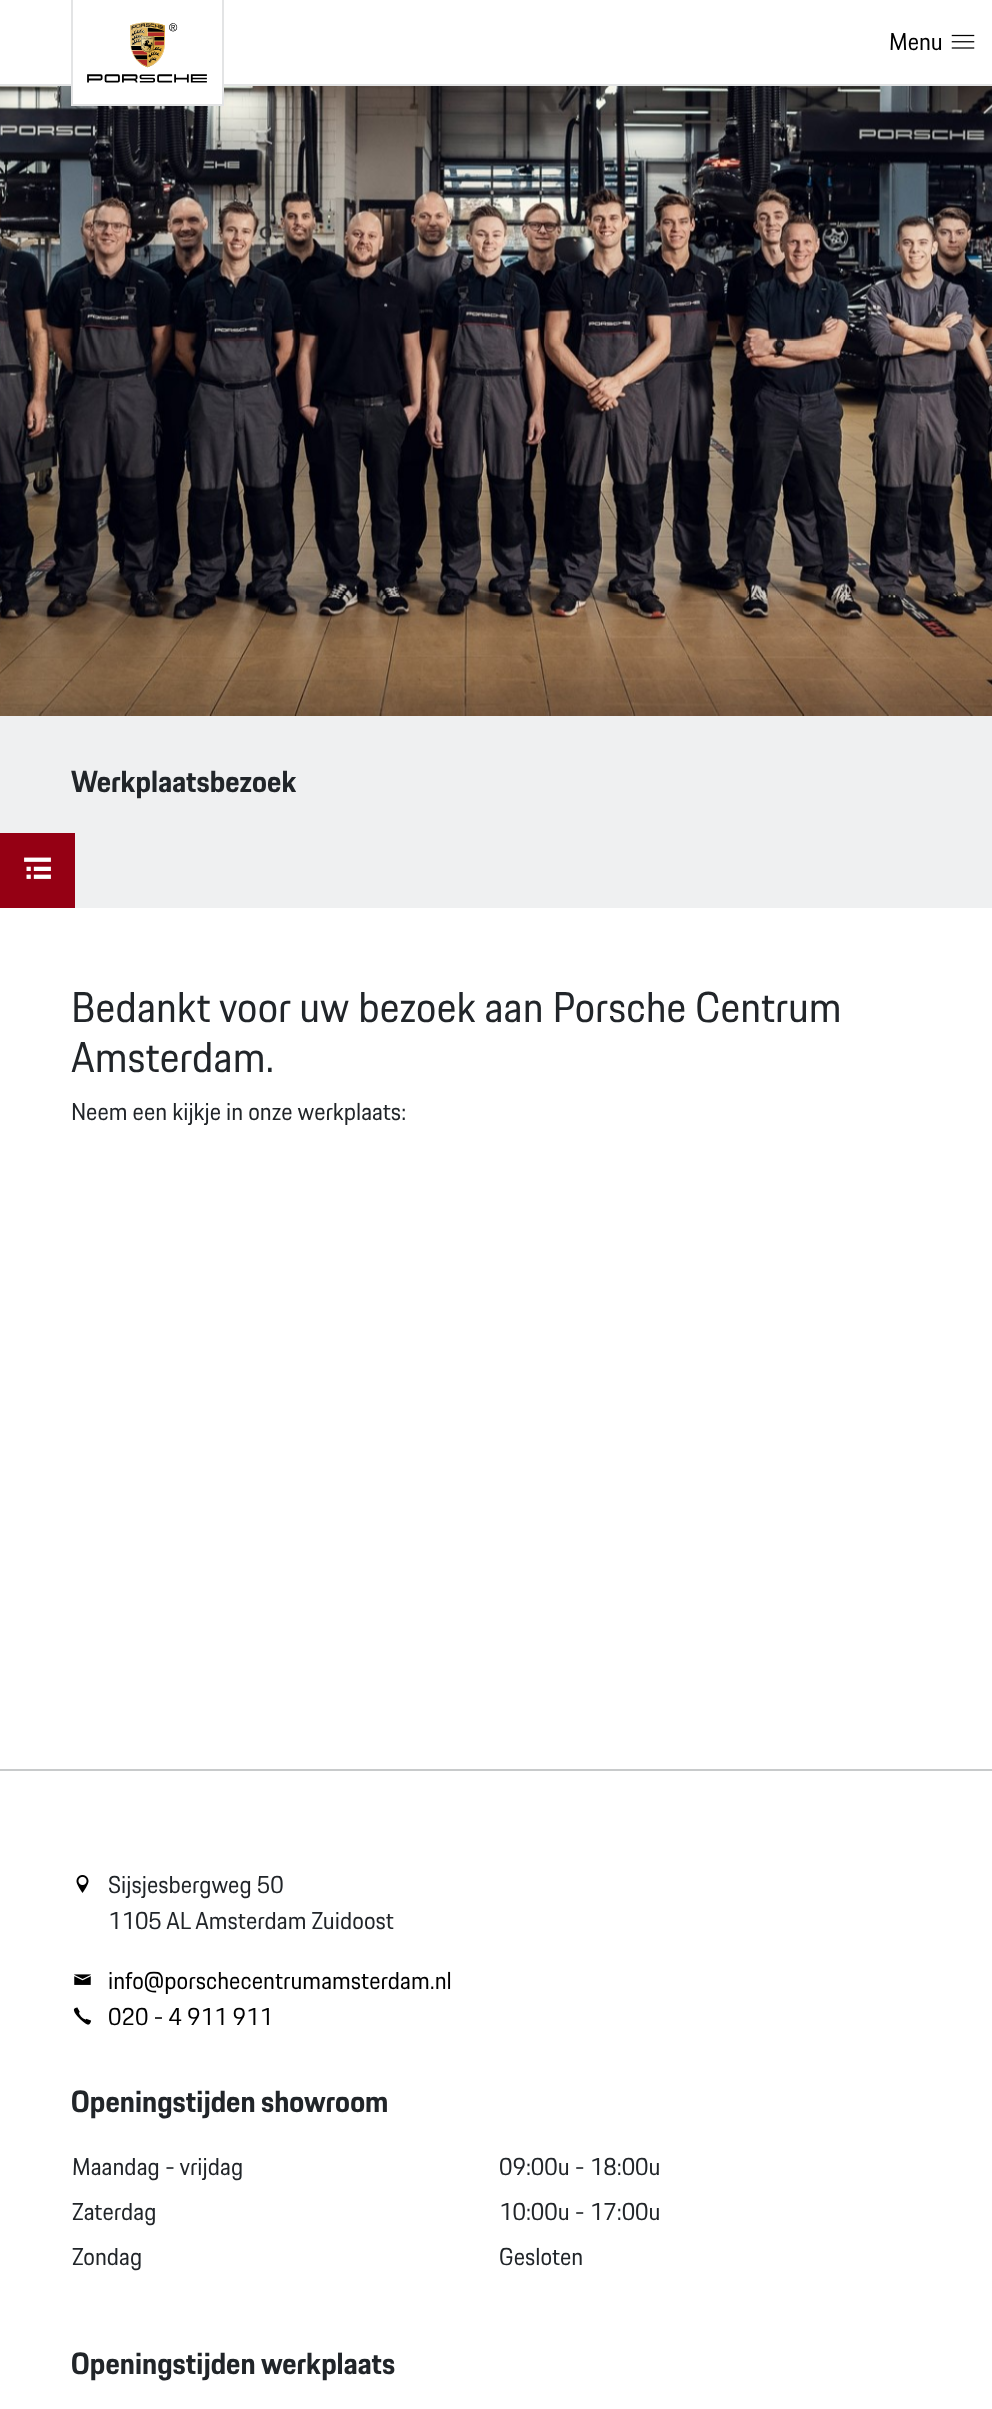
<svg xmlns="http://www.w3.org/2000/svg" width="992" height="2409">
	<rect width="100%" height="100%" fill="#FFFFFF" />
	<rect x="0" y="84" width="992" height="2" fill="#E3E4E5" />
	<image x="0" y="86" width="992" height="630" href="assets/img3.png" />
	<rect x="73" y="84" width="149" height="20" fill="#FFFFFF" />
	<rect x="222" y="0" width="2" height="105" fill="#E3E4E5" />
	<rect x="71" y="104" width="153" height="2" fill="#E3E4E5" />
	<rect x="71" y="0" width="2" height="105" fill="#E3E4E5" />
	<image x="87" y="22" width="120" height="61" href="assets/img1.png" />
	<text x="889" y="50" font-family="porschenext" font-size="24" fill="#000000">Menu</text>
	<image x="951" y="34" width="24" height="15" href="assets/img2.png" />
	<rect x="0" y="716" width="992" height="117" fill="#EFF0F1" />
	<text x="71" y="792" font-family="porschenext" font-size="30" font-weight="700" fill="#212529">Werkplaatsbezoek</text>
	<rect x="75" y="833" width="917" height="75" fill="#EFF0F1" />
	<rect x="0" y="833" width="75" height="75" fill="#950014" />
	<image x="24" y="857" width="27" height="22" href="assets/img4.png" />
	<g font-family="porschenext" font-size="42" fill="#212529">
		<text x="71" y="1022">Bedankt voor uw bezoek aan Porsche Centrum</text>
		<text x="71" y="1072">Amsterdam.</text>
	</g>
	<text x="71" y="1120" font-family="porschenext" font-size="24" fill="#212529">Neem een kijkje in onze werkplaats:</text>
	<rect x="0" y="1769" width="992" height="2" fill="#C8CACB" />
	<image x="76" y="1875" width="13" height="18" href="assets/img5.png" />
	<g font-family="porschenext" font-size="24" fill="#212529">
		<text x="108" y="1893">Sijsjesbergweg 50</text>
		<text x="108" y="1929">1105 AL Amsterdam Zuidoost</text>
	</g>
	<image x="74" y="1974" width="17" height="11" href="assets/img6.png" />
	<text x="108" y="1989" font-family="porschenext" font-size="24" fill="#000000">info@porschecentrumamsterdam.nl</text>
	<image x="73" y="2007" width="19" height="18" href="assets/img7.png" />
	<text x="108" y="2025" font-family="porschenext" font-size="24" fill="#000000">020 - 4 911 911</text>
	<text x="71" y="2112" font-family="porschenext" font-size="30" font-weight="700" fill="#212529">Openingstijden showroom</text>
	<g font-family="porschenext" font-size="24" fill="#212529">
		<text x="72" y="2175">Maandag - vrijdag</text>
		<text x="499" y="2175">09:00u - 18:00u</text>
		<text x="72" y="2220">Zaterdag</text>
		<text x="499" y="2220">10:00u - 17:00u</text>
		<text x="72" y="2265">Zondag</text>
		<text x="499" y="2265">Gesloten</text>
	</g>
	<text x="71" y="2374" font-family="porschenext" font-size="30" font-weight="700" fill="#212529">Openingstijden werkplaats</text>
</svg>
